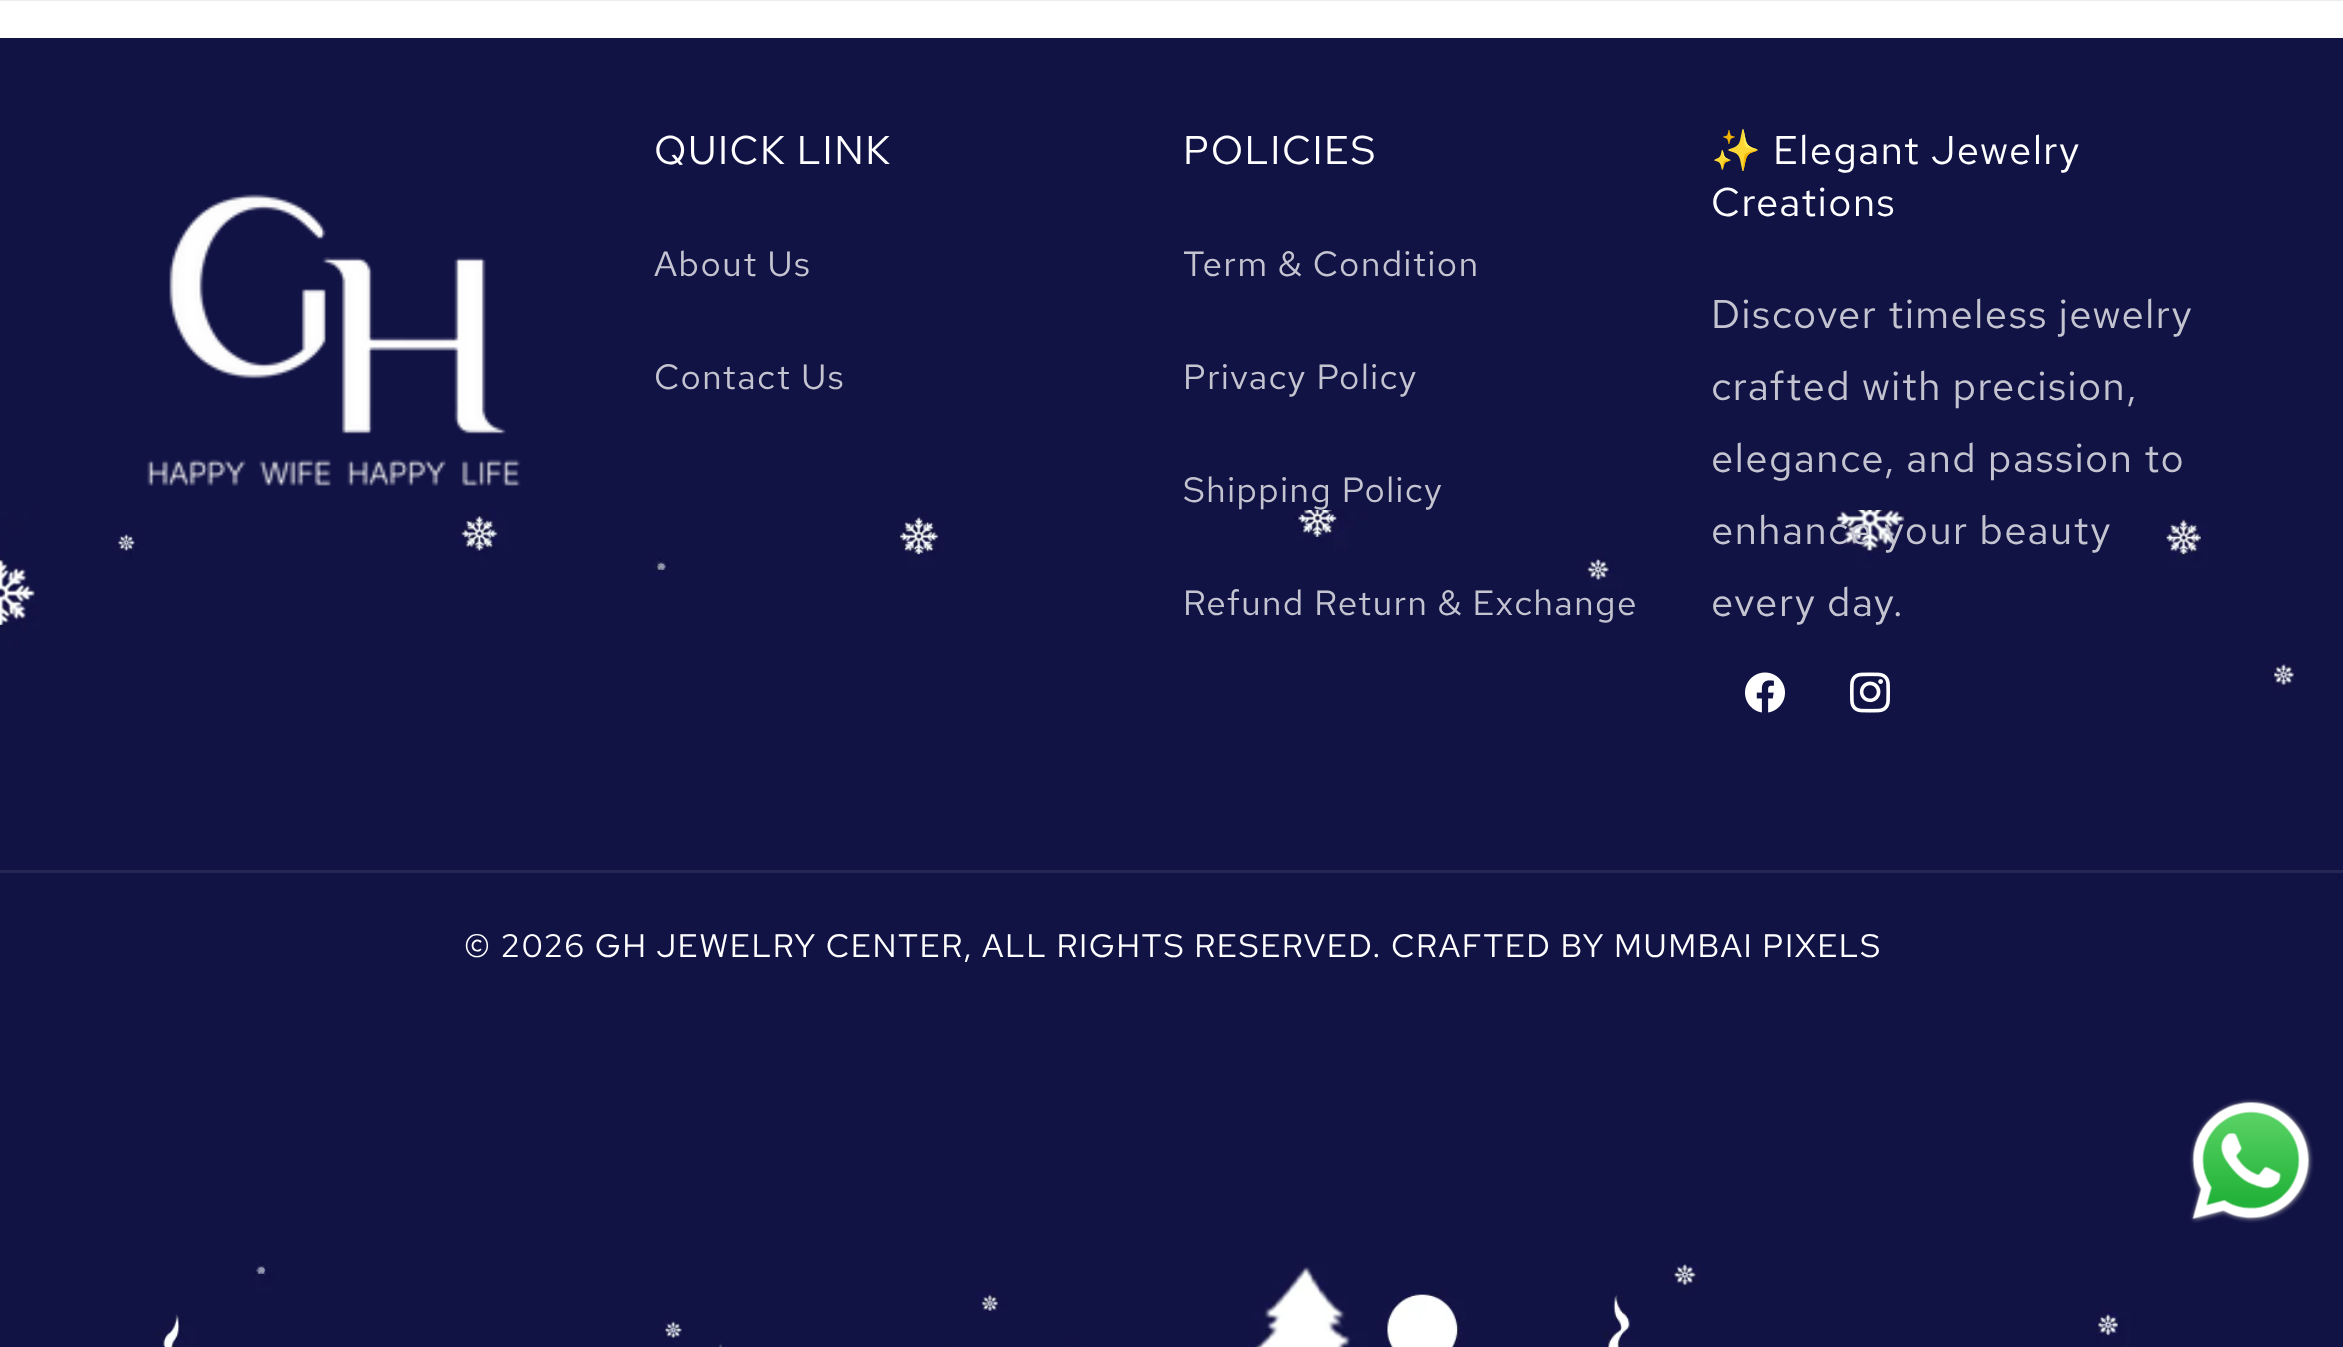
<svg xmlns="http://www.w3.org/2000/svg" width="2343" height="1347">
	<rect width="100%" height="100%" fill="#FFFFFF" />
	<rect x="0" y="0" width="2343" height="1" fill="#ECECEC" />
	<rect x="0" y="38" width="2343" height="1309" fill="#121345" />
	<image x="0" y="510" width="2296" height="837" href="assets/img1.png" />
	<image x="147" y="194" width="374" height="292" href="assets/img2.png" />
	<text x="654" y="164" font-family="Red Hat Text" font-size="40" letter-spacing="1.5" fill="#FFFFFF">QUICK LINK</text>
	<g font-family="Red Hat Text" font-size="35" letter-spacing="1.5" fill="#C4C4D1">
		<text x="654" y="276">About Us</text>
		<text x="654" y="389">Contact Us</text>
	</g>
	<text x="1183" y="164" font-family="Red Hat Text" font-size="40" letter-spacing="1.5" fill="#FFFFFF">POLICIES</text>
	<g font-family="Red Hat Text" font-size="35" letter-spacing="1.5" fill="#C4C4D1">
		<text x="1183" y="276">Term &amp; Condition</text>
		<text x="1183" y="389">Privacy Policy</text>
		<text x="1183" y="502">Shipping Policy</text>
		<text x="1183" y="615">Refund Return &amp; Exchange</text>
	</g>
	<text x="1711" y="164" font-family="Noto Color Emoji" font-size="40" letter-spacing="1.5" fill="#FFFFFF">✨</text>
	<g font-family="Red Hat Text" font-size="40" letter-spacing="1.5" fill="#FFFFFF">
		<text x="1773" y="164">Elegant Jewelry</text>
		<text x="1711" y="216">Creations</text>
	</g>
	<g font-family="Red Hat Text" font-size="40" letter-spacing="1.5" fill="#C4C4D1">
		<text x="1711" y="328">Discover timeless jewelry</text>
		<text x="1711" y="400">crafted with precision,</text>
		<text x="1711" y="472">elegance, and passion to</text>
		<text x="1711" y="544">enhance your beauty</text>
		<text x="1711" y="616">every day.</text>
	</g>
	<image x="1745" y="672" width="40" height="41" href="assets/img3.png" />
	<image x="1850" y="672" width="40" height="41" href="assets/img4.png" />
	<rect x="0" y="870" width="2343" height="3" fill="#252654" />
	<text x="464" y="957" font-family="Red Hat Text" font-size="32.5" letter-spacing="1.5" fill="#FFFFFF">© 2026 GH JEWELRY CENTER, ALL RIGHTS RESERVED. CRAFTED BY MUMBAI PIXELS</text>
	<image x="2189" y="1098" width="125" height="125" href="assets/img5.png" />
</svg>
